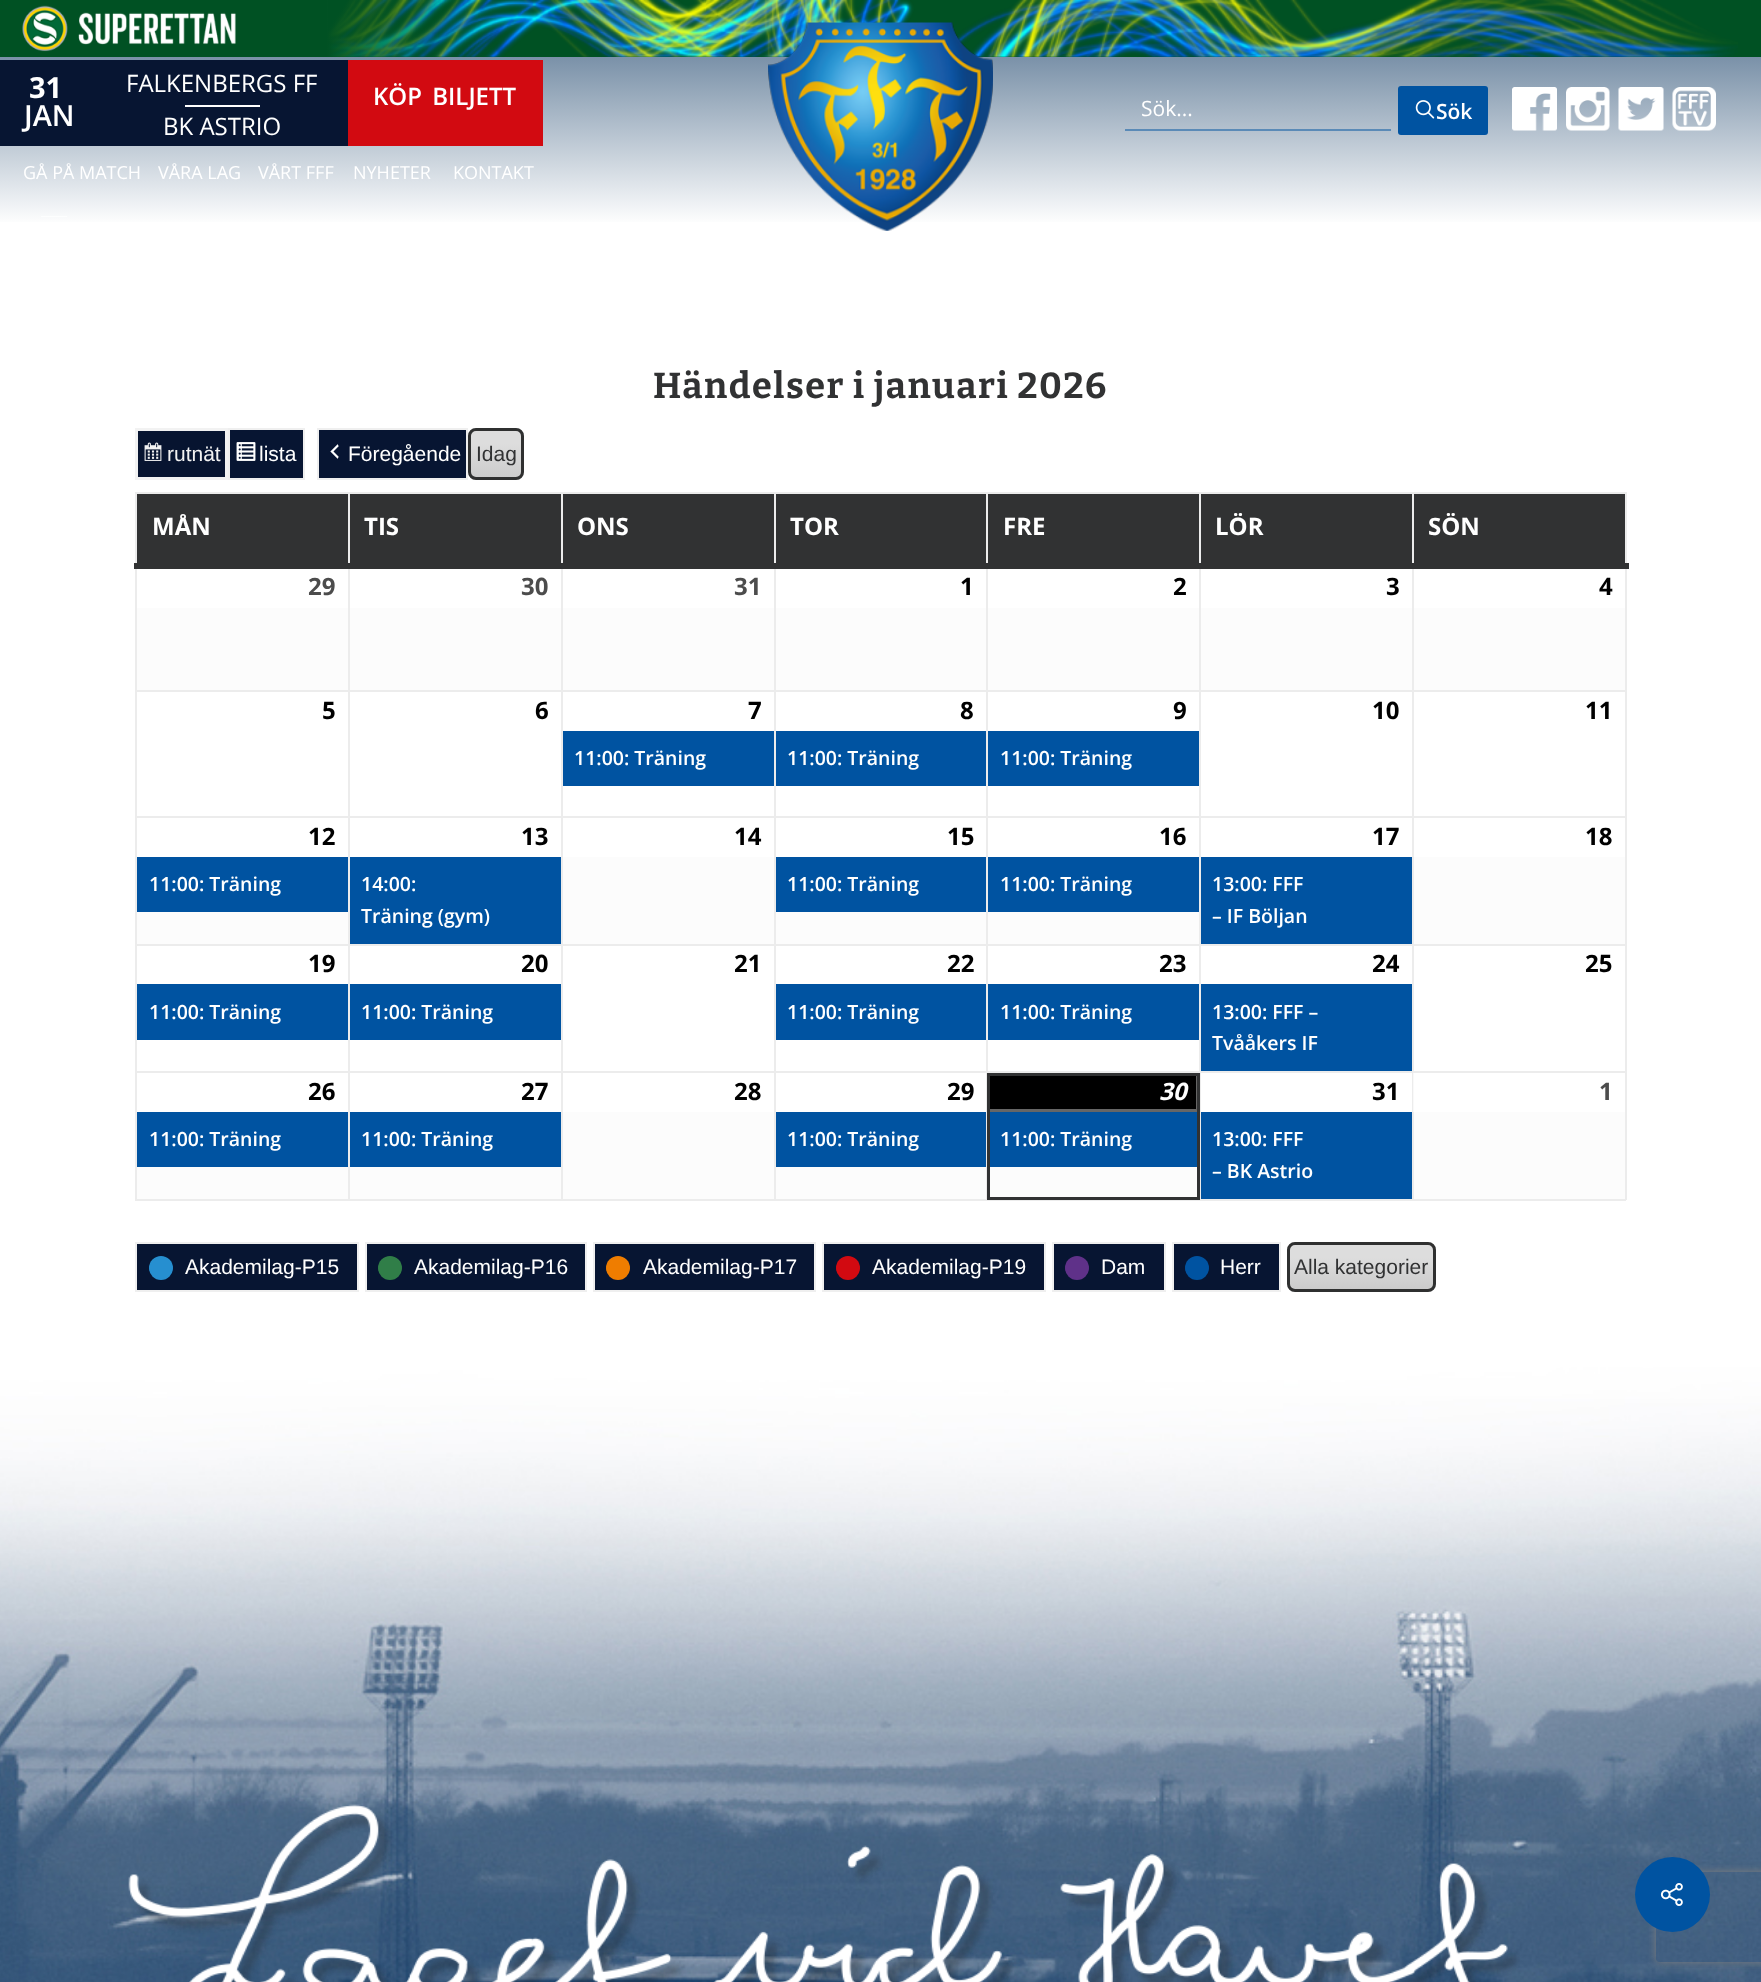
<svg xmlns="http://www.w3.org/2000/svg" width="1761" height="1982">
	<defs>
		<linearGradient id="g1" gradientUnits="userSpaceOnUse" x1="881" y1="0" x2="881" y2="225"><stop offset="0" stop-color="#4D6C8B" /><stop offset="1" stop-color="#FFFFFF" /></linearGradient>
		<linearGradient id="g2" gradientUnits="userSpaceOnUse" x1="327" y1="29" x2="500" y2="28"><stop offset="0" stop-color="#005123" /><stop offset="1" stop-color="#005123" stop-opacity="0" /></linearGradient>
		<clipPath id="clip1"><rect x="468" y="428" width="56" height="52" rx="8" /></clipPath>
		<linearGradient id="g3" gradientUnits="userSpaceOnUse" x1="496" y1="479" x2="496" y2="429"><stop offset="0" stop-color="#CBCBCB" /><stop offset="0.7" stop-color="#DDDDDD" /></linearGradient>
		<clipPath id="clip2"><rect x="1287" y="1242" width="149" height="50" rx="8" /></clipPath>
		<linearGradient id="g4" gradientUnits="userSpaceOnUse" x1="1361" y1="1290" x2="1361" y2="1244"><stop offset="0" stop-color="#CBCBCB" /><stop offset="0.7" stop-color="#DDDDDD" /></linearGradient>
		<clipPath id="clip3"><path d="M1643 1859H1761V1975H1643ZM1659 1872H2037C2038.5 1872 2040 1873.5 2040 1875V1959C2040 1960.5 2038.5 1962 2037 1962H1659C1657.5 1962 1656 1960.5 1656 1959V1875C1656 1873.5 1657.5 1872 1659 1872Z" clip-rule="evenodd" /></clipPath>
	</defs>
	<rect width="100%" height="100%" fill="#FFFFFF" />
	<rect x="0" y="57" width="1761" height="165" fill="url(#g1)" />
	<rect x="328" y="0" width="1433" height="57" fill="#005123" />
	<image x="328" y="0" width="1410" height="57" href="assets/img1.png" />
	<rect x="0" y="0" width="327" height="57" fill="#005123" />
	<image x="22" y="5" width="214" height="47" href="assets/img2.png" />
	<rect x="327" y="0" width="169" height="57" fill="url(#g2)" />
	<rect x="0" y="60" width="348" height="86" fill="#071532" />
	<text x="29" y="98" font-family="Open Sans" font-size="29" font-weight="700" fill="#FFFFFF">31</text>
	<text x="24" y="126" font-family="Open Sans" font-size="29" font-weight="600" fill="#FFFFFF">JAN</text>
	<text x="126" y="92" font-family="Open Sans" font-size="24" fill="#FFFFFF">FALKENBERGS FF</text>
	<rect x="185" y="105" width="75" height="2" fill="#FFFFFF" />
	<text x="163" y="135" font-family="Open Sans" font-size="24" fill="#FFFFFF">BK ASTRIO</text>
	<rect x="348" y="60" width="195" height="86" fill="#D20A11" />
	<text x="373" y="105" word-spacing="4" font-family="Open Sans" font-size="24" font-weight="600" fill="#FFFFFF">KÖP BILJETT</text>
	<image x="768" y="22" width="225" height="209" href="assets/img3.png" />
	<rect x="1125" y="129" width="266" height="2" fill="#5A8AB7" />
	<text x="1141" y="116" font-family="Open Sans" font-size="21" fill="#FFFFFF">Sök...</text>
	<rect x="1398" y="86" width="90" height="49" rx="3" fill="#0053A1" />
	<image x="1415" y="100" width="20" height="19" href="assets/img4.png" />
	<text x="1436" y="119" font-family="Open Sans" font-size="21" font-weight="600" fill="#FFFFFF">Sök</text>
	<image x="1512" y="87" width="45" height="44" href="assets/img5.png" />
	<image x="1566" y="87" width="44" height="44" href="assets/img6.png" />
	<image x="1618" y="87" width="46" height="44" href="assets/img7.png" />
	<image x="1672" y="87" width="44" height="44" href="assets/img8.png" />
	<g font-family="Open Sans" font-size="18" fill="#FFFFFF">
		<text x="23" y="179">GÅ PÅ MATCH</text>
		<text x="158" y="179">VÅRA LAG</text>
		<text x="258" y="179">VÅRT FFF</text>
		<text x="353" y="179">NYHETER</text>
		<text x="453" y="179">KONTAKT</text>
	</g>
	<rect x="41" y="216" width="26" height="1" fill="#FDFEFE" />
	<text x="653" y="398" font-family="Bitter" font-size="36" font-weight="100" letter-spacing="1.5" fill="#313233">Händelser i januari 2026</text>
	<rect x="138" y="431" width="87" height="46" fill="#071430" />
	<image x="144" y="442" width="18" height="19" href="assets/img9.png" />
	<rect x="136.5" y="429.5" width="90" height="49" fill="none" stroke="#F2F2F2" stroke-width="3" />
	<text x="167" y="461" font-family="Liberation Sans" font-size="21" fill="#F2F2F2">rutnät</text>
	<rect x="229" y="429" width="75" height="50" fill="#071532" stroke="#EFEFEF" stroke-width="2" />
	<image x="236" y="442" width="20" height="19" href="assets/img10.png" />
	<text x="259" y="461" font-family="Liberation Sans" font-size="21" fill="#FFFFFF">lista</text>
	<rect x="318" y="429" width="149" height="50" fill="#071532" stroke="#EFEFEF" stroke-width="2" />
	<image x="330" y="444" width="9" height="15" href="assets/img11.png" />
	<text x="348" y="461" font-family="Liberation Sans" font-size="21" fill="#FFFFFF">Föregående</text>
	<g clip-path="url(#clip1)">
		<rect x="468" y="429" width="56" height="50" fill="url(#g3)" />
	</g>
	<rect x="469" y="429" width="54" height="50" rx="7" fill="none" stroke="#E3E3E3" stroke-width="2" />
	<rect x="469.5" y="429.5" width="53" height="49" rx="6.5" fill="none" stroke="#2F3030" stroke-width="3" />
	<text x="476" y="461" font-family="Liberation Sans" font-size="21" fill="#313233">Idag</text>
	<rect x="135" y="492" width="1491" height="2" fill="#ECECEC" />
	<rect x="137" y="608" width="1488" height="82" fill="#FCFCFC" />
	<rect x="137" y="857" width="1488" height="87" fill="#FCFCFC" />
	<rect x="137" y="1112" width="1488" height="87" fill="#FCFCFC" />
	<rect x="1625" y="492" width="2" height="708" fill="#ECECEC" />
	<rect x="1412" y="1199" width="214" height="2" fill="#ECECEC" />
	<rect x="1412" y="1071" width="2" height="129" fill="#ECECEC" />
	<rect x="1412" y="1071" width="214" height="2" fill="#ECECEC" />
	<rect x="1412" y="944" width="2" height="129" fill="#ECECEC" />
	<rect x="1412" y="944" width="214" height="2" fill="#ECECEC" />
	<rect x="1412" y="816" width="2" height="129" fill="#ECECEC" />
	<rect x="1412" y="816" width="214" height="2" fill="#ECECEC" />
	<rect x="1412" y="690" width="2" height="128" fill="#ECECEC" />
	<rect x="1412" y="690" width="214" height="2" fill="#ECECEC" />
	<rect x="1412" y="492" width="2" height="200" fill="#ECECEC" />
	<rect x="1199" y="1199" width="214" height="2" fill="#ECECEC" />
	<rect x="1200" y="1071" width="1" height="129" fill="#ECECEC" />
	<rect x="1199" y="1071" width="214" height="2" fill="#ECECEC" />
	<rect x="1199" y="944" width="2" height="129" fill="#ECECEC" />
	<rect x="1199" y="944" width="214" height="2" fill="#ECECEC" />
	<rect x="1199" y="816" width="2" height="129" fill="#ECECEC" />
	<rect x="1199" y="816" width="214" height="2" fill="#ECECEC" />
	<rect x="1199" y="690" width="2" height="128" fill="#ECECEC" />
	<rect x="1199" y="690" width="214" height="2" fill="#ECECEC" />
	<rect x="1199" y="492" width="2" height="200" fill="#ECECEC" />
	<rect x="986" y="1071" width="1" height="129" fill="#ECECEC" />
	<rect x="986" y="1071" width="214" height="2" fill="#ECECEC" />
	<rect x="986" y="944" width="2" height="129" fill="#ECECEC" />
	<rect x="986" y="944" width="214" height="2" fill="#ECECEC" />
	<rect x="986" y="816" width="2" height="129" fill="#ECECEC" />
	<rect x="986" y="816" width="214" height="2" fill="#ECECEC" />
	<rect x="986" y="690" width="2" height="128" fill="#ECECEC" />
	<rect x="986" y="690" width="214" height="2" fill="#ECECEC" />
	<rect x="986" y="492" width="2" height="200" fill="#ECECEC" />
	<rect x="986" y="1200" width="214" height="1" fill="#ECECEC" />
	<rect x="774" y="1199" width="213" height="2" fill="#ECECEC" />
	<rect x="774" y="1071" width="2" height="129" fill="#ECECEC" />
	<rect x="774" y="1071" width="213" height="2" fill="#ECECEC" />
	<rect x="774" y="944" width="2" height="129" fill="#ECECEC" />
	<rect x="774" y="944" width="213" height="2" fill="#ECECEC" />
	<rect x="774" y="816" width="2" height="129" fill="#ECECEC" />
	<rect x="774" y="816" width="213" height="2" fill="#ECECEC" />
	<rect x="774" y="690" width="2" height="128" fill="#ECECEC" />
	<rect x="774" y="690" width="213" height="2" fill="#ECECEC" />
	<rect x="774" y="492" width="2" height="200" fill="#ECECEC" />
	<rect x="561" y="1199" width="215" height="2" fill="#ECECEC" />
	<rect x="561" y="1071" width="2" height="129" fill="#ECECEC" />
	<rect x="561" y="1071" width="215" height="2" fill="#ECECEC" />
	<rect x="561" y="944" width="2" height="129" fill="#ECECEC" />
	<rect x="561" y="944" width="215" height="2" fill="#ECECEC" />
	<rect x="561" y="816" width="2" height="129" fill="#ECECEC" />
	<rect x="561" y="816" width="215" height="2" fill="#ECECEC" />
	<rect x="561" y="690" width="2" height="128" fill="#ECECEC" />
	<rect x="561" y="690" width="215" height="2" fill="#ECECEC" />
	<rect x="561" y="492" width="2" height="200" fill="#ECECEC" />
	<rect x="348" y="1199" width="215" height="2" fill="#ECECEC" />
	<rect x="348" y="1071" width="2" height="129" fill="#ECECEC" />
	<rect x="348" y="1071" width="215" height="2" fill="#ECECEC" />
	<rect x="348" y="944" width="2" height="129" fill="#ECECEC" />
	<rect x="348" y="944" width="215" height="2" fill="#ECECEC" />
	<rect x="348" y="816" width="2" height="129" fill="#ECECEC" />
	<rect x="348" y="816" width="215" height="2" fill="#ECECEC" />
	<rect x="348" y="690" width="2" height="128" fill="#ECECEC" />
	<rect x="348" y="690" width="215" height="2" fill="#ECECEC" />
	<rect x="348" y="492" width="2" height="200" fill="#ECECEC" />
	<rect x="135" y="1199" width="215" height="2" fill="#ECECEC" />
	<rect x="135" y="1071" width="2" height="129" fill="#ECECEC" />
	<rect x="135" y="1071" width="215" height="2" fill="#ECECEC" />
	<rect x="135" y="944" width="2" height="129" fill="#ECECEC" />
	<rect x="135" y="944" width="215" height="2" fill="#ECECEC" />
	<rect x="135" y="816" width="2" height="129" fill="#ECECEC" />
	<rect x="135" y="816" width="215" height="2" fill="#ECECEC" />
	<rect x="135" y="690" width="2" height="128" fill="#ECECEC" />
	<rect x="135" y="690" width="215" height="2" fill="#ECECEC" />
	<rect x="135" y="492" width="2" height="200" fill="#ECECEC" />
	<rect x="134" y="563" width="1495" height="6" fill="#313233" />
	<rect x="137" y="494" width="211" height="69" fill="#313233" />
	<text x="152" y="535" font-family="Open Sans" font-size="24" font-weight="700" fill="#FFFFFF">MÅN</text>
	<rect x="350" y="494" width="211" height="69" fill="#313233" />
	<text x="364" y="535" font-family="Open Sans" font-size="24" font-weight="700" fill="#FFFFFF">TIS</text>
	<rect x="563" y="494" width="211" height="69" fill="#313233" />
	<text x="577" y="535" font-family="Open Sans" font-size="24" font-weight="700" fill="#FFFFFF">ONS</text>
	<rect x="776" y="494" width="210" height="69" fill="#313233" />
	<text x="790" y="535" font-family="Open Sans" font-size="24" font-weight="700" fill="#FFFFFF">TOR</text>
	<rect x="988" y="494" width="211" height="69" fill="#313233" />
	<text x="1003" y="535" font-family="Open Sans" font-size="24" font-weight="700" fill="#FFFFFF">FRE</text>
	<rect x="1201" y="494" width="211" height="69" fill="#313233" />
	<text x="1215" y="535" font-family="Open Sans" font-size="24" font-weight="700" fill="#FFFFFF">LÖR</text>
	<rect x="1414" y="494" width="211" height="69" fill="#313233" />
	<text x="1428" y="535" font-family="Open Sans" font-size="24" font-weight="700" fill="#FFFFFF">SÖN</text>
	<g font-family="Open Sans" font-size="24" font-weight="700" fill="#4C4C4C">
		<text x="308" y="595">29</text>
		<text x="521" y="595">30</text>
		<text x="734" y="595">31</text>
	</g>
	<g font-family="Open Sans" font-size="24" font-weight="700" fill="#000000">
		<text x="960" y="595">1</text>
		<text x="1173" y="595">2</text>
		<text x="1386" y="595">3</text>
		<text x="1599" y="595">4</text>
		<text x="322" y="719">5</text>
		<text x="535" y="719">6</text>
		<text x="748" y="719">7</text>
	</g>
	<rect x="563" y="731" width="211" height="55" fill="#0053A1" />
	<text x="574" y="765" font-family="Open Sans" font-size="19.5" font-weight="600" fill="#FFFFFF">11:00: Träning</text>
	<text x="960" y="719" font-family="Open Sans" font-size="24" font-weight="700" fill="#000000">8</text>
	<rect x="776" y="731" width="210" height="55" fill="#0053A1" />
	<text x="787" y="765" font-family="Open Sans" font-size="19.5" font-weight="600" fill="#FFFFFF">11:00: Träning</text>
	<text x="1173" y="719" font-family="Open Sans" font-size="24" font-weight="700" fill="#000000">9</text>
	<rect x="988" y="731" width="211" height="55" fill="#0053A1" />
	<text x="1000" y="765" font-family="Open Sans" font-size="19.5" font-weight="600" fill="#FFFFFF">11:00: Träning</text>
	<g font-family="Open Sans" font-size="24" font-weight="700" fill="#000000">
		<text x="1372" y="719">10</text>
		<text x="1585" y="719">11</text>
		<text x="308" y="845">12</text>
	</g>
	<rect x="137" y="857" width="211" height="55" fill="#0053A1" />
	<text x="149" y="891" font-family="Open Sans" font-size="19.5" font-weight="600" fill="#FFFFFF">11:00: Träning</text>
	<text x="521" y="845" font-family="Open Sans" font-size="24" font-weight="700" fill="#000000">13</text>
	<rect x="350" y="857" width="211" height="87" fill="#0053A1" />
	<g font-family="Open Sans" font-size="19.5" font-weight="600" fill="#FFFFFF">
		<text x="361" y="891">14:00:</text>
		<text x="361" y="923">Träning (gym)</text>
	</g>
	<g font-family="Open Sans" font-size="24" font-weight="700" fill="#000000">
		<text x="734" y="845">14</text>
		<text x="947" y="845">15</text>
	</g>
	<rect x="776" y="857" width="210" height="55" fill="#0053A1" />
	<text x="787" y="891" font-family="Open Sans" font-size="19.5" font-weight="600" fill="#FFFFFF">11:00: Träning</text>
	<text x="1159" y="845" font-family="Open Sans" font-size="24" font-weight="700" fill="#000000">16</text>
	<rect x="988" y="857" width="211" height="55" fill="#0053A1" />
	<text x="1000" y="891" font-family="Open Sans" font-size="19.5" font-weight="600" fill="#FFFFFF">11:00: Träning</text>
	<text x="1372" y="845" font-family="Open Sans" font-size="24" font-weight="700" fill="#000000">17</text>
	<rect x="1201" y="857" width="211" height="87" fill="#0053A1" />
	<g font-family="Open Sans" font-size="19.5" font-weight="600" fill="#FFFFFF">
		<text x="1212" y="891">13:00: FFF</text>
		<text x="1212" y="923">– IF Böljan</text>
	</g>
	<g font-family="Open Sans" font-size="24" font-weight="700" fill="#000000">
		<text x="1585" y="845">18</text>
		<text x="308" y="972">19</text>
	</g>
	<rect x="137" y="984" width="211" height="56" fill="#0053A1" />
	<text x="149" y="1019" font-family="Open Sans" font-size="19.5" font-weight="600" fill="#FFFFFF">11:00: Träning</text>
	<text x="521" y="972" font-family="Open Sans" font-size="24" font-weight="700" fill="#000000">20</text>
	<rect x="350" y="984" width="211" height="56" fill="#0053A1" />
	<text x="361" y="1019" font-family="Open Sans" font-size="19.5" font-weight="600" fill="#FFFFFF">11:00: Träning</text>
	<g font-family="Open Sans" font-size="24" font-weight="700" fill="#000000">
		<text x="734" y="972">21</text>
		<text x="947" y="972">22</text>
	</g>
	<rect x="776" y="984" width="210" height="56" fill="#0053A1" />
	<text x="787" y="1019" font-family="Open Sans" font-size="19.5" font-weight="600" fill="#FFFFFF">11:00: Träning</text>
	<text x="1159" y="972" font-family="Open Sans" font-size="24" font-weight="700" fill="#000000">23</text>
	<rect x="988" y="984" width="211" height="56" fill="#0053A1" />
	<text x="1000" y="1019" font-family="Open Sans" font-size="19.5" font-weight="600" fill="#FFFFFF">11:00: Träning</text>
	<text x="1372" y="972" font-family="Open Sans" font-size="24" font-weight="700" fill="#000000">24</text>
	<rect x="1201" y="984" width="211" height="87" fill="#0053A1" />
	<g font-family="Open Sans" font-size="19.5" font-weight="600" fill="#FFFFFF">
		<text x="1212" y="1019">13:00: FFF –</text>
		<text x="1212" y="1050">Tvååkers IF</text>
	</g>
	<g font-family="Open Sans" font-size="24" font-weight="700" fill="#000000">
		<text x="1585" y="972">25</text>
		<text x="308" y="1100">26</text>
	</g>
	<rect x="137" y="1112" width="211" height="55" fill="#0053A1" />
	<text x="149" y="1146" font-family="Open Sans" font-size="19.5" font-weight="600" fill="#FFFFFF">11:00: Träning</text>
	<text x="521" y="1100" font-family="Open Sans" font-size="24" font-weight="700" fill="#000000">27</text>
	<rect x="350" y="1112" width="211" height="55" fill="#0053A1" />
	<text x="361" y="1146" font-family="Open Sans" font-size="19.5" font-weight="600" fill="#FFFFFF">11:00: Träning</text>
	<g font-family="Open Sans" font-size="24" font-weight="700" fill="#000000">
		<text x="734" y="1100">28</text>
		<text x="947" y="1100">29</text>
	</g>
	<rect x="776" y="1112" width="210" height="55" fill="#0053A1" />
	<text x="787" y="1146" font-family="Open Sans" font-size="19.5" font-weight="600" fill="#FFFFFF">11:00: Träning</text>
	<rect x="988.5" y="1074.5" width="209" height="36" fill="#000000" stroke="#666666" stroke-width="3" />
	<rect x="990" y="1112" width="207" height="55" fill="#0053A1" />
	<rect x="988.5" y="1074.5" width="210" height="124" fill="none" stroke="#313233" stroke-width="3" />
	<text x="1159" y="1100" font-family="Open Sans" font-size="24" font-weight="700" font-style="italic" fill="#FFFFFF">30</text>
	<text x="1000" y="1146" font-family="Open Sans" font-size="19.5" font-weight="600" fill="#FFFFFF">11:00: Träning</text>
	<rect x="1413" y="1073" width="1" height="39" fill="#F9F9F9" />
	<text x="1372" y="1100" font-family="Open Sans" font-size="24" font-weight="700" fill="#000000">31</text>
	<rect x="1201" y="1112" width="211" height="87" fill="#0053A1" />
	<g font-family="Open Sans" font-size="19.5" font-weight="600" fill="#FFFFFF">
		<text x="1212" y="1146">13:00: FFF</text>
		<text x="1212" y="1178">– BK Astrio</text>
	</g>
	<text x="1599" y="1100" font-family="Open Sans" font-size="24" font-weight="700" fill="#4C4C4C">1</text>
	<rect x="136" y="1243" width="222" height="48" fill="#071532" stroke="#EFEFEF" stroke-width="2" />
	<circle cx="161" cy="1268" r="12" fill="#268FD0" />
	<text x="185" y="1274" font-family="Liberation Sans" font-size="21" fill="#FFFFFF">Akademilag-P15</text>
	<rect x="366" y="1243" width="220" height="48" fill="#071532" stroke="#EFEFEF" stroke-width="2" />
	<circle cx="390" cy="1268" r="12" fill="#307E48" />
	<text x="414" y="1274" font-family="Liberation Sans" font-size="21" fill="#FFFFFF">Akademilag-P16</text>
	<rect x="594" y="1243" width="221" height="48" fill="#071532" stroke="#EFEFEF" stroke-width="2" />
	<circle cx="618" cy="1268" r="12" fill="#EF7D00" />
	<text x="643" y="1274" font-family="Liberation Sans" font-size="21" fill="#FFFFFF">Akademilag-P17</text>
	<rect x="823" y="1243" width="222" height="48" fill="#071532" stroke="#EFEFEF" stroke-width="2" />
	<circle cx="848" cy="1268" r="12" fill="#D20A11" />
	<text x="872" y="1274" font-family="Liberation Sans" font-size="21" fill="#FFFFFF">Akademilag-P19</text>
	<rect x="1053" y="1243" width="112" height="48" fill="#071532" stroke="#EFEFEF" stroke-width="2" />
	<circle cx="1077" cy="1268" r="12" fill="#5F3189" />
	<text x="1101" y="1274" font-family="Liberation Sans" font-size="21" fill="#FFFFFF">Dam</text>
	<rect x="1173" y="1243" width="107" height="48" fill="#071532" stroke="#EFEFEF" stroke-width="2" />
	<circle cx="1197" cy="1268" r="12" fill="#0053A1" />
	<text x="1220" y="1274" font-family="Liberation Sans" font-size="21" fill="#FFFFFF">Herr</text>
	<g clip-path="url(#clip2)">
		<rect x="1287" y="1244" width="149" height="46" fill="url(#g4)" />
	</g>
	<rect x="1288" y="1243" width="147" height="48" rx="7" fill="none" stroke="#E3E3E3" stroke-width="2" />
	<rect x="1288.5" y="1243.5" width="146" height="47" rx="6.5" fill="none" stroke="#2F3030" stroke-width="3" />
	<text x="1294" y="1274" font-family="Liberation Sans" font-size="21" fill="#313233">Alla kategorier</text>
	<image x="0" y="1364" width="1761" height="618" href="assets/img12.png" />
	<image x="128" y="1804" width="1392" height="178" href="assets/img13.png" />
	<g clip-path="url(#clip3)">
		<rect x="1656" y="1872" width="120" height="90" rx="3" fill="#808080" filter="blur(4px)" />
	</g>
	<circle cx="1672.5" cy="1894.5" r="37.5" fill="#0053A1" />
	<image x="1660" y="1883" width="23" height="23" href="assets/img14.png" />
</svg>
